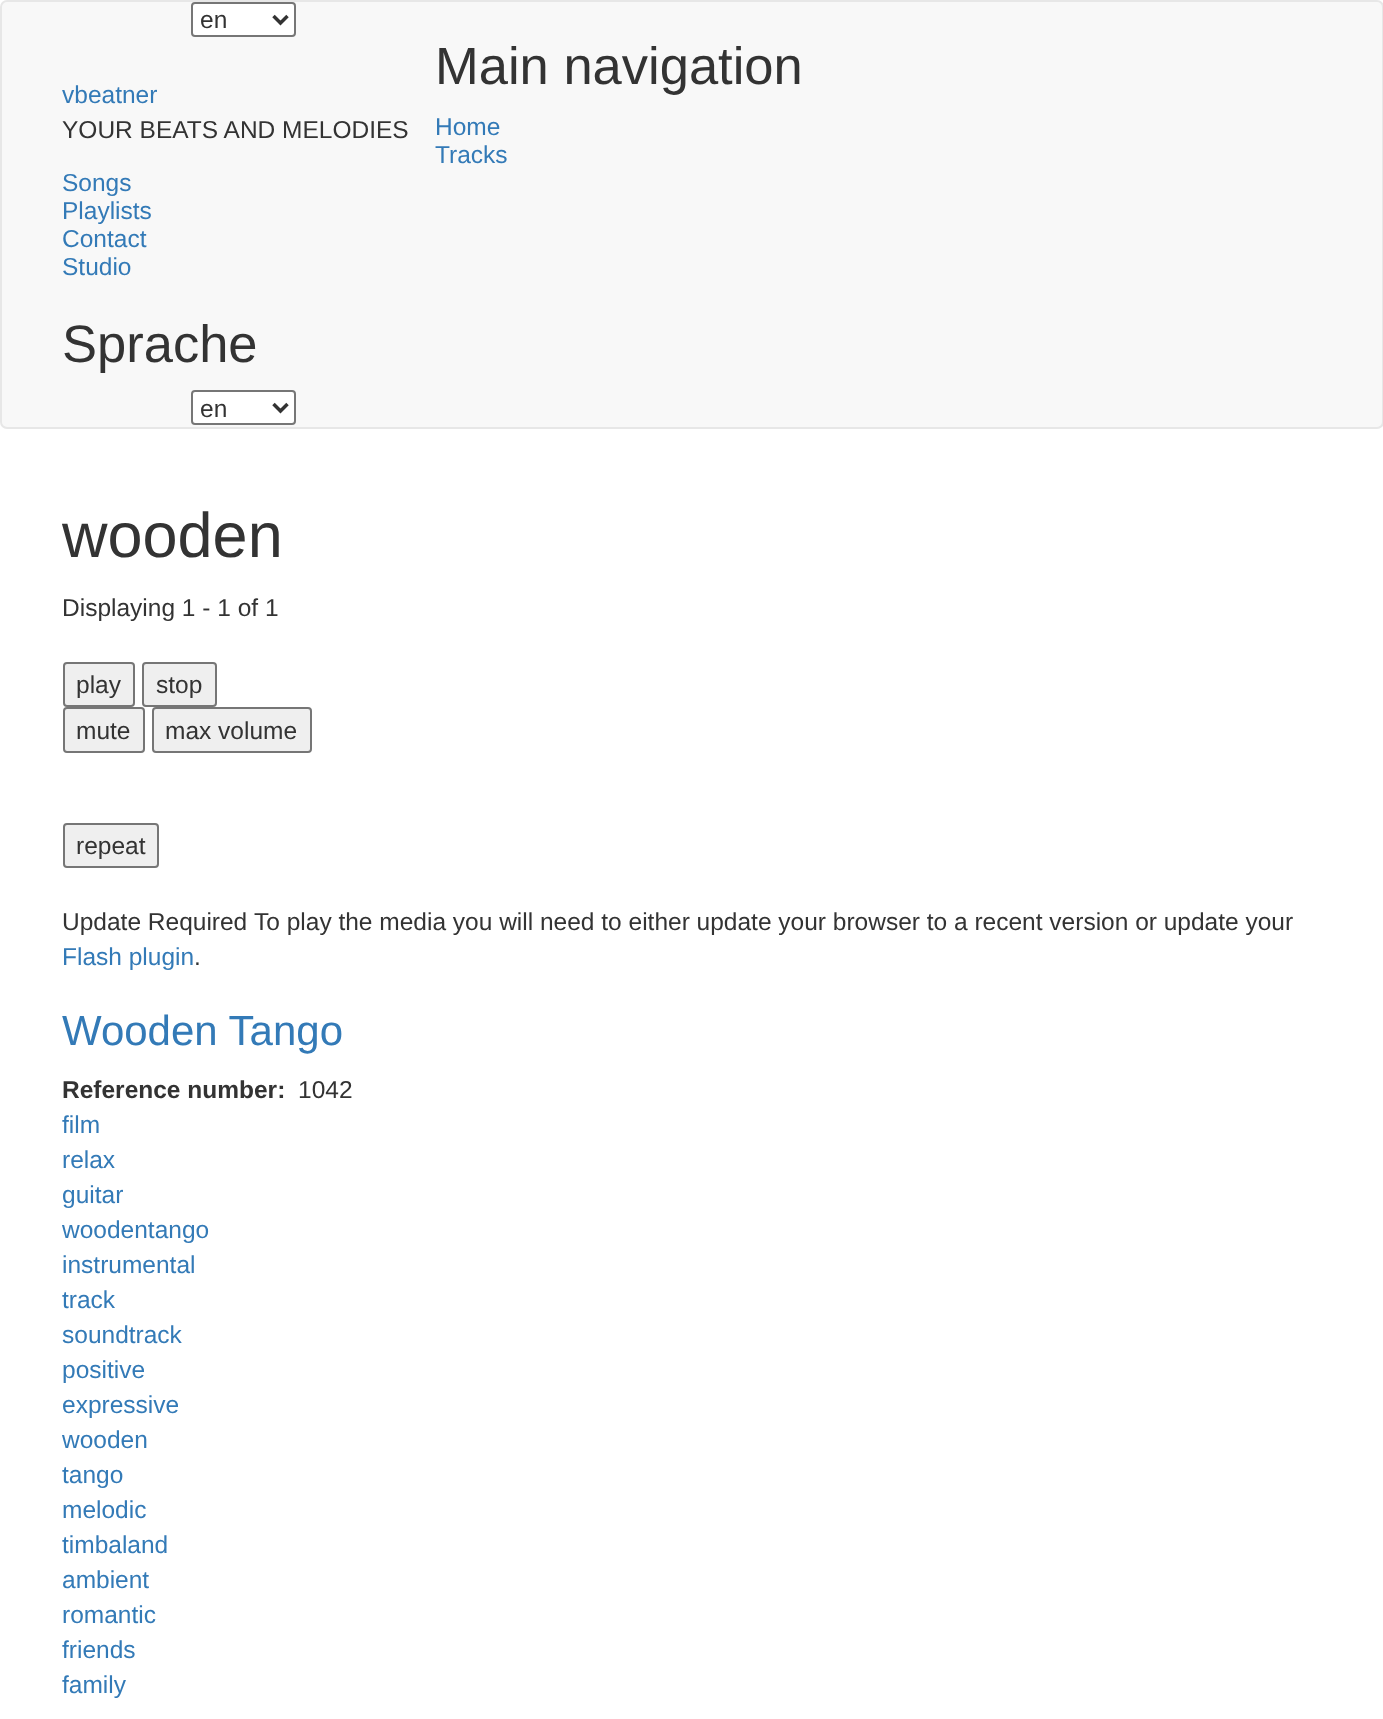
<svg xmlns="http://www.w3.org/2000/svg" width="1383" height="1719">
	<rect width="100%" height="100%" fill="#FFFFFF" />
	<rect x="1" y="1" width="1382" height="427" rx="6" fill="#F8F8F8" stroke="#E7E7E7" stroke-width="2" />
	<rect x="192" y="3" width="103" height="33" rx="3" fill="#FFFFFF" stroke="#767676" stroke-width="2" />
	<path d="M273.5 16L280.5 23L287.5 16" fill="none" stroke="#333333" stroke-width="3.5" />
	<text x="200" y="28" font-family="Liberation Sans" font-size="24.5" fill="#333333">en</text>
	<text x="62" y="103" font-family="Liberation Sans" font-size="24.5" fill="#337AB7">vbeatner</text>
	<text x="62" y="138" font-family="Liberation Sans" font-size="24.5" fill="#333333">YOUR BEATS AND MELODIES</text>
	<text x="435" y="84" font-family="Liberation Sans" font-size="52.5" fill="#333333">Main navigation</text>
	<g font-family="Liberation Sans" font-size="24.5" fill="#337AB7">
		<text x="435" y="135">Home</text>
		<text x="435" y="163">Tracks</text>
		<text x="62" y="191">Songs</text>
		<text x="62" y="219">Playlists</text>
		<text x="62" y="247">Contact</text>
		<text x="62" y="275">Studio</text>
	</g>
	<text x="62" y="362" font-family="Liberation Sans" font-size="52.5" fill="#333333">Sprache</text>
	<rect x="192" y="391" width="103" height="33" rx="3" fill="#FFFFFF" stroke="#767676" stroke-width="2" />
	<path d="M273.5 404L280.5 411L287.5 404" fill="none" stroke="#333333" stroke-width="3.5" />
	<text x="200" y="417" font-family="Liberation Sans" font-size="24.5" fill="#333333">en</text>
	<text x="62" y="557" font-family="Liberation Sans" font-size="63" fill="#333333">wooden</text>
	<text x="62" y="616" font-family="Liberation Sans" font-size="24.5" fill="#333333">Displaying 1 - 1 of 1</text>
	<rect x="64" y="663" width="70" height="43" rx="3" fill="#EFEFEF" stroke="#767676" stroke-width="2" />
	<text x="76" y="693" font-family="Liberation Sans" font-size="24.5" fill="#333333">play</text>
	<rect x="143" y="663" width="73" height="43" rx="3" fill="#EFEFEF" stroke="#767676" stroke-width="2" />
	<text x="156" y="693" font-family="Liberation Sans" font-size="24.5" fill="#333333">stop</text>
	<rect x="64" y="708" width="80" height="44" rx="3" fill="#EFEFEF" stroke="#767676" stroke-width="2" />
	<text x="76" y="739" font-family="Liberation Sans" font-size="24.5" fill="#333333">mute</text>
	<rect x="153" y="708" width="158" height="44" rx="3" fill="#EFEFEF" stroke="#767676" stroke-width="2" />
	<text x="165" y="739" font-family="Liberation Sans" font-size="24.5" fill="#333333">max volume</text>
	<rect x="64" y="824" width="94" height="43" rx="3" fill="#EFEFEF" stroke="#767676" stroke-width="2" />
	<g font-family="Liberation Sans" font-size="24.5" fill="#333333">
		<text x="76" y="854">repeat</text>
		<text x="62" y="930">Update Required</text>
		<text x="254" y="930">To play the media you will need to either update your browser to a recent version or update your</text>
	</g>
	<text x="62" y="965" font-family="Liberation Sans" font-size="24.5" fill="#337AB7">Flash plugin</text>
	<text x="194" y="965" font-family="Liberation Sans" font-size="24.5" fill="#333333">.</text>
	<text x="62" y="1045" font-family="Liberation Sans" font-size="42" fill="#337AB7">Wooden Tango</text>
	<text x="62" y="1098" font-family="Liberation Sans" font-size="24.5" font-weight="700" fill="#333333">Reference number:</text>
	<text x="298" y="1098" font-family="Liberation Sans" font-size="24.5" fill="#333333">1042</text>
	<g font-family="Liberation Sans" font-size="24.5" fill="#337AB7">
		<text x="62" y="1133">film</text>
		<text x="62" y="1168">relax</text>
		<text x="62" y="1203">guitar</text>
		<text x="62" y="1238">woodentango</text>
		<text x="62" y="1273">instrumental</text>
		<text x="62" y="1308">track</text>
		<text x="62" y="1343">soundtrack</text>
		<text x="62" y="1378">positive</text>
		<text x="62" y="1413">expressive</text>
		<text x="62" y="1448">wooden</text>
		<text x="62" y="1483">tango</text>
		<text x="62" y="1518">melodic</text>
		<text x="62" y="1553">timbaland</text>
		<text x="62" y="1588">ambient</text>
		<text x="62" y="1623">romantic</text>
		<text x="62" y="1658">friends</text>
		<text x="62" y="1693">family</text>
	</g>
</svg>
